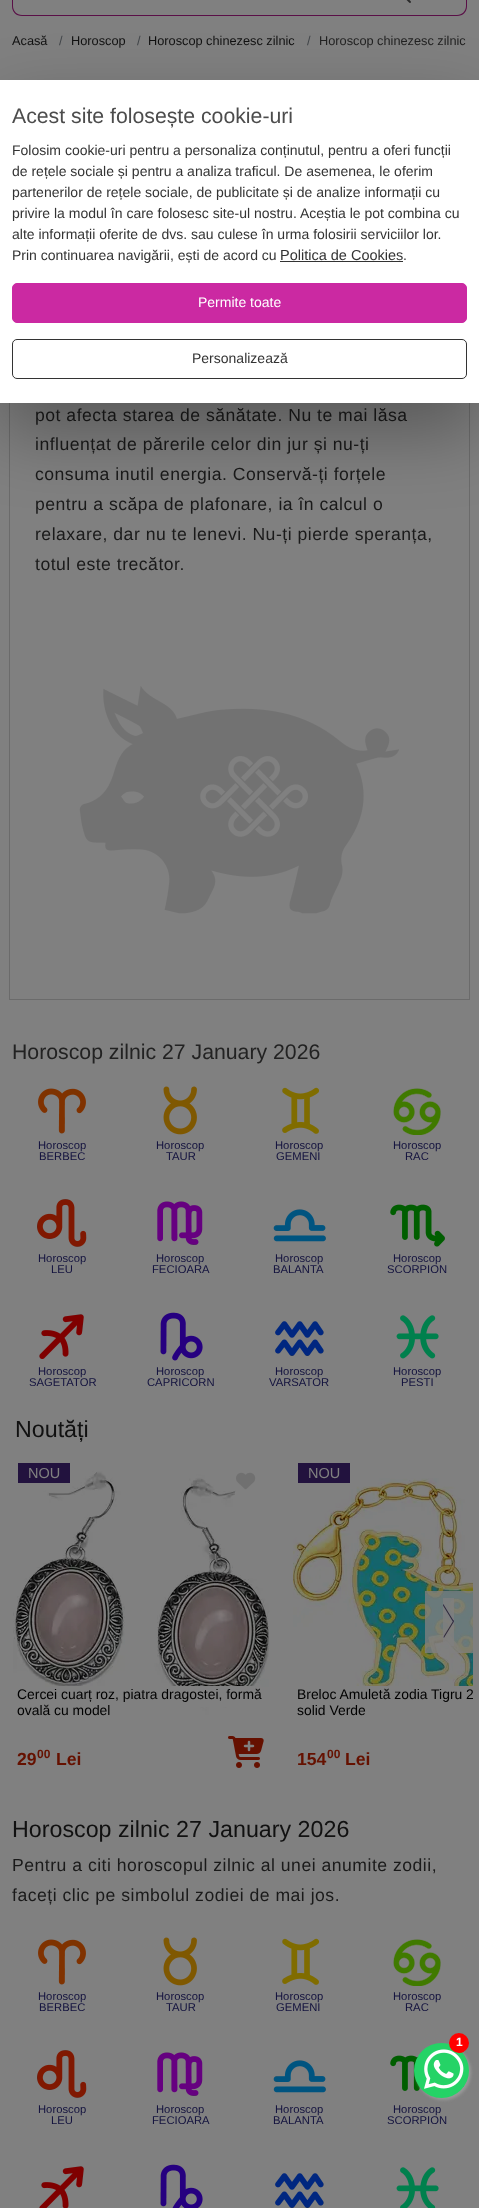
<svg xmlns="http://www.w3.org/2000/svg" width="479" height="2208">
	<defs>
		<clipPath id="clip1"><rect x="297" y="1686" width="176" height="35" /></clipPath>
	</defs>
	<rect width="100%" height="100%" fill="#808080" />
	<path d="M22-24H381V16H22C16 16 12 12 12 6V-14C12-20 16-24 22-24ZM22-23H381V15H22C17 15 13 11 13 6V-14C13-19 17-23 22-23Z" fill="#5A0F47" fill-rule="evenodd" />
	<path d="M380-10H457C462.5-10 467-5.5 467 0V6C467 11.5 462.5 16 457 16H380Z" fill="#808080" />
	<path d="M380-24H457C463-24 467-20 467-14V6C467 12 463 16 457 16H380ZM380-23H457C462-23 466-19 466-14V6C466 11 462 15 457 15H380Z" fill="#5A0F47" fill-rule="evenodd" />
	<image x="406" y="0" width="5" height="3" href="assets/img1.png" />
	<text x="12" y="45" font-family="Liberation Sans" font-size="12.75" fill="#111111">Acasă</text>
	<text x="59" y="45" font-family="Liberation Sans" font-size="12.75" fill="#414549">/</text>
	<text x="71" y="45" font-family="Liberation Sans" font-size="12.75" fill="#111111">Horoscop</text>
	<text x="137" y="45" font-family="Liberation Sans" font-size="12.75" fill="#414549">/</text>
	<text x="148" y="45" font-family="Liberation Sans" font-size="12.75" fill="#111111">Horoscop chinezesc zilnic</text>
	<text x="307" y="45" font-family="Liberation Sans" font-size="12.75" fill="#414549">/</text>
	<text x="319" y="45" font-family="Liberation Sans" font-size="12.75" fill="#222222">Horoscop chinezesc zilnic</text>
	<rect x="9.5" y="202.5" width="460" height="797" fill="none" stroke="#6B6B6B" />
	<g font-family="Liberation Sans" font-size="17.6" letter-spacing="0.5" fill="#1A1A1A">
		<text x="35" y="421">pot afecta starea de sănătate. Nu te mai lăsa</text>
		<text x="35" y="450">influențat de părerile celor din jur și nu-ți</text>
		<text x="35" y="480">consuma inutil energia. Conservă-ți forțele</text>
		<text x="35" y="510">pentru a scăpa de plafonare, ia în calcul o</text>
		<text x="35" y="540">relaxare, dar nu te lenevi. Nu-ți pierde speranța,</text>
		<text x="35" y="570">totul este trecător.</text>
	</g>
	<image x="79" y="686" width="320" height="228" href="assets/img2.png" />
	<text x="12" y="1059" font-family="Liberation Sans" font-size="21.25" fill="#222222">Horoscop zilnic 27 January 2026</text>
	<image x="38" y="1088" width="48" height="46" href="assets/img3.png" />
	<g font-family="Liberation Sans" font-size="11.25" fill="#13123E">
		<text x="38" y="1149">Horoscop</text>
		<text x="39" y="1160">BERBEC</text>
	</g>
	<image x="163" y="1086" width="34" height="49" href="assets/img4.png" />
	<g font-family="Liberation Sans" font-size="11.25" fill="#13123E">
		<text x="156" y="1149">Horoscop</text>
		<text x="166" y="1160">TAUR</text>
	</g>
	<image x="282" y="1087" width="38" height="47" href="assets/img5.png" />
	<g font-family="Liberation Sans" font-size="11.25" fill="#13123E">
		<text x="275" y="1149">Horoscop</text>
		<text x="276" y="1160">GEMENI</text>
	</g>
	<image x="393" y="1088" width="48" height="47" href="assets/img6.png" />
	<g font-family="Liberation Sans" font-size="11.25" fill="#13123E">
		<text x="393" y="1149">Horoscop</text>
		<text x="405" y="1160">RAC</text>
	</g>
	<image x="37" y="1199" width="50" height="48" href="assets/img7.png" />
	<g font-family="Liberation Sans" font-size="11.25" fill="#13123E">
		<text x="38" y="1262">Horoscop</text>
		<text x="51" y="1273">LEU</text>
	</g>
	<image x="157" y="1201" width="46" height="44" href="assets/img8.png" />
	<g font-family="Liberation Sans" font-size="11.25" fill="#13123E">
		<text x="156" y="1262">Horoscop</text>
		<text x="152" y="1273">FECIOARA</text>
	</g>
	<image x="273" y="1209" width="53" height="33" href="assets/img9.png" />
	<g font-family="Liberation Sans" font-size="11.25" fill="#13123E">
		<text x="275" y="1262">Horoscop</text>
		<text x="273" y="1273">BALANTA</text>
	</g>
	<image x="390" y="1204" width="55" height="43" href="assets/img10.png" />
	<g font-family="Liberation Sans" font-size="11.25" fill="#13123E">
		<text x="393" y="1262">Horoscop</text>
		<text x="387" y="1273">SCORPION</text>
	</g>
	<image x="39" y="1314" width="45" height="45" href="assets/img11.png" />
	<g font-family="Liberation Sans" font-size="11.25" fill="#13123E">
		<text x="38" y="1375">Horoscop</text>
		<text x="29" y="1386">SAGETATOR</text>
	</g>
	<image x="160" y="1312" width="43" height="49" href="assets/img12.png" />
	<g font-family="Liberation Sans" font-size="11.25" fill="#13123E">
		<text x="156" y="1375">Horoscop</text>
		<text x="147" y="1386">CAPRICORN</text>
	</g>
	<image x="275" y="1321" width="49" height="35" href="assets/img13.png" />
	<g font-family="Liberation Sans" font-size="11.25" fill="#13123E">
		<text x="275" y="1375">Horoscop</text>
		<text x="269" y="1386">VARSATOR</text>
	</g>
	<image x="396" y="1315" width="43" height="44" href="assets/img14.png" />
	<g font-family="Liberation Sans" font-size="11.25" fill="#13123E">
		<text x="393" y="1375">Horoscop</text>
		<text x="401" y="1386">PESTI</text>
	</g>
	<text x="15" y="1437" font-family="Liberation Sans" font-size="23.25" fill="#111111">Noutăți</text>
	<image x="13" y="1463" width="257" height="257" href="assets/img15.png" />
	<rect x="18" y="1463" width="52" height="20" fill="#22123E" />
	<text x="28" y="1478" font-family="Liberation Sans" font-size="14.5" fill="#808080">NOU</text>
	<rect x="57" y="1686" width="198" height="21" fill="#808080" />
	<g font-family="Liberation Sans" font-size="13.9" fill="#000000">
		<text x="17" y="1699">Cercei cuarț roz, piatra dragostei, formă</text>
		<text x="17" y="1715">ovală cu model</text>
	</g>
	<image x="236" y="1472" width="20" height="18" href="assets/img16.png" />
	<text x="17" y="1765" font-family="Liberation Sans" font-size="17.6" font-weight="700" fill="#651100">29</text>
	<text x="37" y="1758" font-family="Liberation Sans" font-size="12" font-weight="700" fill="#651100">00</text>
	<text x="56" y="1765" font-family="Liberation Sans" font-size="17.6" font-weight="700" fill="#651100">Lei</text>
	<image x="228" y="1736" width="36" height="32" href="assets/img17.png" />
	<image x="293" y="1478" width="180" height="225" href="assets/img18.png" />
	<rect x="298" y="1463" width="52" height="20" fill="#22123E" />
	<text x="308" y="1478" font-family="Liberation Sans" font-size="14.5" fill="#808080">NOU</text>
	<rect x="356" y="1686" width="117" height="17" fill="#808080" />
	<g clip-path="url(#clip1)">
		<text x="297" y="1699" font-family="Liberation Sans" font-size="13.9" fill="#000000">Breloc Amuletă zodia Tigru 2</text>
	</g>
	<text x="297" y="1715" font-family="Liberation Sans" font-size="13.9" fill="#000000">solid Verde</text>
	<text x="297" y="1765" font-family="Liberation Sans" font-size="17.6" font-weight="700" fill="#651100">154</text>
	<text x="327" y="1758" font-family="Liberation Sans" font-size="12" font-weight="700" fill="#651100">00</text>
	<text x="345" y="1765" font-family="Liberation Sans" font-size="17.6" font-weight="700" fill="#651100">Lei</text>
	<rect x="425" y="1591" width="48" height="62" fill="#808080" fill-opacity="0.8" />
	<image x="443" y="1598" width="11" height="48" href="assets/img19.png" />
	<text x="12" y="1837" font-family="Liberation Sans" font-size="23.25" fill="#111111">Horoscop zilnic 27 January 2026</text>
	<g font-family="Liberation Sans" font-size="17.6" letter-spacing="0.5" fill="#1A1A1A">
		<text x="12" y="1871">Pentru a citi horoscopul zilnic al unei anumite zodii,</text>
		<text x="12" y="1901">faceți clic pe simbolul zodiei de mai jos.</text>
	</g>
	<image x="38" y="1939" width="48" height="46" href="assets/img3.png" />
	<g font-family="Liberation Sans" font-size="11.25" fill="#13123E">
		<text x="38" y="2000">Horoscop</text>
		<text x="39" y="2011">BERBEC</text>
	</g>
	<image x="163" y="1937" width="34" height="49" href="assets/img4.png" />
	<g font-family="Liberation Sans" font-size="11.25" fill="#13123E">
		<text x="156" y="2000">Horoscop</text>
		<text x="166" y="2011">TAUR</text>
	</g>
	<image x="282" y="1938" width="38" height="47" href="assets/img5.png" />
	<g font-family="Liberation Sans" font-size="11.25" fill="#13123E">
		<text x="275" y="2000">Horoscop</text>
		<text x="276" y="2011">GEMENI</text>
	</g>
	<image x="393" y="1939" width="48" height="47" href="assets/img6.png" />
	<g font-family="Liberation Sans" font-size="11.25" fill="#13123E">
		<text x="393" y="2000">Horoscop</text>
		<text x="405" y="2011">RAC</text>
	</g>
	<image x="37" y="2050" width="50" height="48" href="assets/img7.png" />
	<g font-family="Liberation Sans" font-size="11.25" fill="#13123E">
		<text x="38" y="2113">Horoscop</text>
		<text x="51" y="2124">LEU</text>
	</g>
	<image x="157" y="2052" width="46" height="44" href="assets/img8.png" />
	<g font-family="Liberation Sans" font-size="11.25" fill="#13123E">
		<text x="156" y="2113">Horoscop</text>
		<text x="152" y="2124">FECIOARA</text>
	</g>
	<image x="273" y="2060" width="53" height="33" href="assets/img9.png" />
	<g font-family="Liberation Sans" font-size="11.25" fill="#13123E">
		<text x="275" y="2113">Horoscop</text>
		<text x="273" y="2124">BALANTA</text>
	</g>
	<image x="390" y="2055" width="49" height="43" href="assets/img20.png" />
	<g font-family="Liberation Sans" font-size="11.25" fill="#13123E">
		<text x="393" y="2113">Horoscop</text>
		<text x="387" y="2124">SCORPION</text>
	</g>
	<image x="39" y="2166" width="45" height="42" href="assets/img21.png" />
	<image x="160" y="2164" width="43" height="44" href="assets/img22.png" />
	<image x="275" y="2173" width="49" height="35" href="assets/img13.png" />
	<image x="396" y="2167" width="43" height="41" href="assets/img23.png" />
	<rect x="0" y="110" width="479" height="323" fill="#000000" fill-opacity="0.3" filter="blur(35px)" />
	<rect x="0" y="80" width="479" height="323" fill="#FFFFFF" />
	<text x="12" y="123" font-family="Liberation Sans" font-size="21.25" fill="#4C4C4C">Acest site folosește cookie-uri</text>
	<g font-family="Liberation Sans" font-size="14" fill="#333333">
		<text x="12" y="155">Folosim cookie-uri pentru a personaliza conținutul, pentru a oferi funcții</text>
		<text x="12" y="176">de rețele sociale și pentru a analiza traficul. De asemenea, le oferim</text>
		<text x="12" y="197">partenerilor de rețele sociale, de publicitate și de analize informații cu</text>
		<text x="12" y="218">privire la modul în care folosesc site-ul nostru. Aceștia le pot combina cu</text>
		<text x="12" y="239">alte informații oferite de dvs. sau culese în urma folosirii serviciilor lor.</text>
		<text x="12" y="260">Prin continuarea navigării, ești de acord cu</text>
	</g>
	<text x="280" y="260" font-family="Liberation Sans" font-size="14.5" fill="#333333">Politica de Cookies</text>
	<rect x="280" y="261" width="123" height="1" fill="#333333" />
	<text x="403" y="260" font-family="Liberation Sans" font-size="14" fill="#333333">.</text>
	<rect x="12.5" y="283.5" width="454" height="39" rx="4.5" fill="#CB29A2" stroke="#CB29A2" />
	<text x="198" y="307" font-family="Liberation Sans" font-size="14" fill="#FFFFFF">Permite toate</text>
	<rect x="12.5" y="339.5" width="454" height="39" rx="4.5" fill="none" stroke="#333333" />
	<text x="192" y="363" font-family="Liberation Sans" font-size="14" fill="#333333">Personalizează</text>
	<rect x="416" y="2045" width="55" height="55" rx="27.5" fill="#999999" filter="blur(1.5px)" />
	<circle cx="441.5" cy="2070.5" r="27.5" fill="#25D366" />
	<circle cx="459" cy="2043" r="10" fill="#FF0000" />
	<text x="456" y="2046" font-family="Liberation Sans" font-size="12" font-weight="700" fill="#FFFFFF">1</text>
	<image x="424" y="2049" width="40" height="40" href="assets/img24.png" />
</svg>
